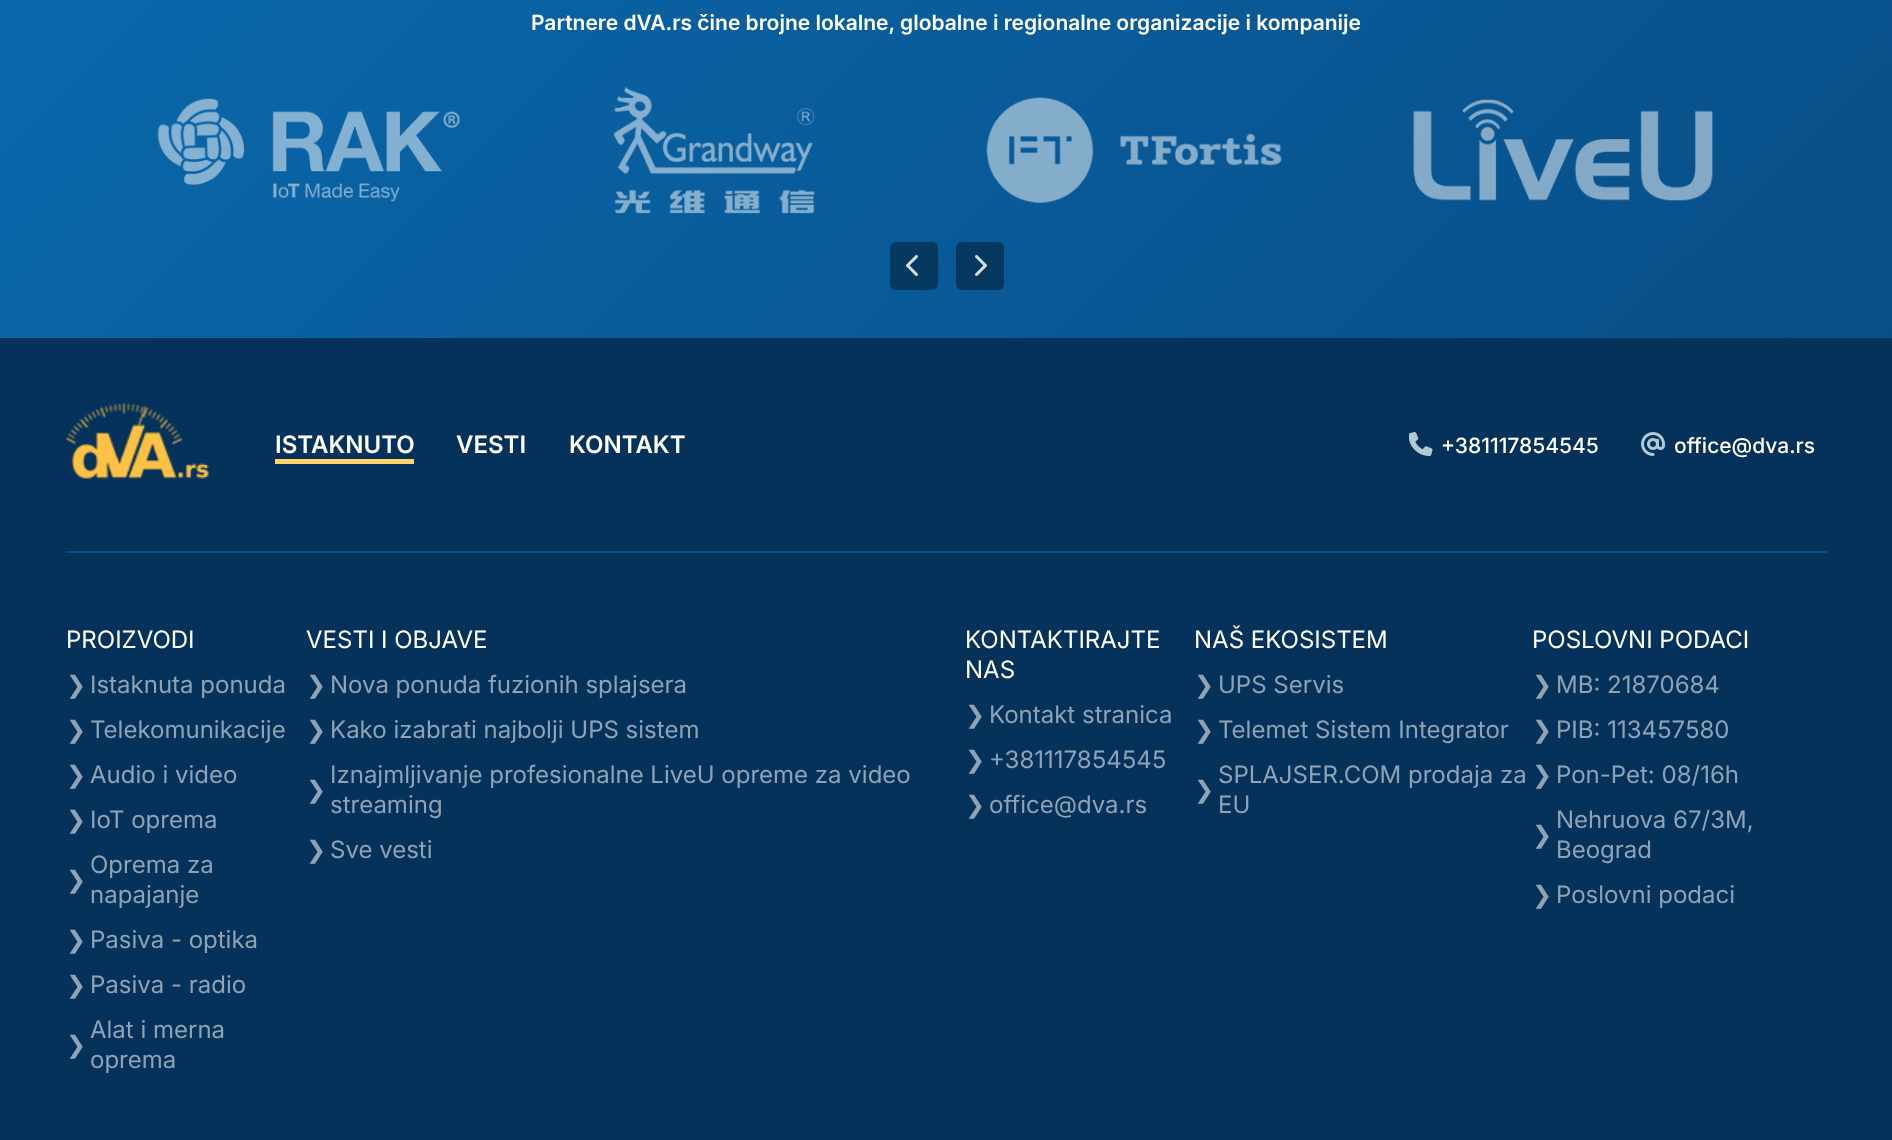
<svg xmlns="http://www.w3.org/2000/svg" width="1892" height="1140">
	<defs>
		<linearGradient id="g1" gradientUnits="userSpaceOnUse" x1="362" y1="-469" x2="1531" y2="700"><stop offset="0" stop-color="#0A69AD" /><stop offset="1" stop-color="#084E87" /></linearGradient>
	</defs>
	<rect width="100%" height="100%" fill="#FFFFFF" />
	<rect x="0" y="0" width="1892" height="338" fill="url(#g1)" />
	<text x="531" y="30" font-family="Inter" font-size="21" font-weight="600" fill="#FFFFFF">Partnere dVA.rs čine brojne lokalne, globalne i regionalne organizacije i kompanije</text>
	<image x="157" y="87" width="1556" height="127" href="assets/img1.png" />
	<rect x="890" y="242" width="48" height="48" rx="6" fill="#063960" />
	<image x="906" y="255" width="12" height="21" href="assets/img2.png" />
	<rect x="956" y="242" width="48" height="48" rx="6" fill="#06385F" />
	<image x="975" y="255" width="12" height="21" href="assets/img3.png" />
	<rect x="0" y="338" width="1892" height="802" fill="#05325B" />
	<rect x="66" y="551" width="1761" height="2" fill="#084E87" />
	<image x="66" y="403" width="143" height="76" href="assets/img4.png" />
	<rect x="275" y="459" width="139" height="5" fill="#FFD369" />
	<g font-family="Inter" font-size="24" font-weight="600" fill="#FFFFFF">
		<text x="275" y="453">ISTAKNUTO</text>
		<text x="456" y="453">VESTI</text>
		<text x="569" y="453">KONTAKT</text>
	</g>
	<image x="1409" y="432" width="24" height="24" href="assets/img5.png" />
	<text x="1441" y="453" font-family="Inter" font-size="21" font-weight="500" fill="#FFFFFF">+381117854545</text>
	<image x="1641" y="432" width="24" height="24" href="assets/img6.png" />
	<text x="1674" y="453" font-family="Inter" font-size="21" font-weight="500" fill="#FFFFFF">office@dva.rs</text>
	<text x="66" y="648" font-family="Inter" font-size="24" fill="#FFFFFF">PROIZVODI</text>
	<text x="66" y="693" font-family="DejaVu Sans" font-size="24" fill="#8FA3B5">❯</text>
	<text x="90" y="693" font-family="Inter" font-size="24" fill="#8FA3B5">Istaknuta ponuda</text>
	<text x="66" y="738" font-family="DejaVu Sans" font-size="24" fill="#8FA3B5">❯</text>
	<text x="90" y="738" font-family="Inter" font-size="24" fill="#8FA3B5">Telekomunikacije</text>
	<text x="66" y="783" font-family="DejaVu Sans" font-size="24" fill="#8FA3B5">❯</text>
	<text x="90" y="783" font-family="Inter" font-size="24" fill="#8FA3B5">Audio i video</text>
	<text x="66" y="828" font-family="DejaVu Sans" font-size="24" fill="#8FA3B5">❯</text>
	<text x="90" y="828" font-family="Inter" font-size="24" fill="#8FA3B5">IoT oprema</text>
	<text x="66" y="888" font-family="DejaVu Sans" font-size="24" fill="#8FA3B5">❯</text>
	<g font-family="Inter" font-size="24" fill="#8FA3B5">
		<text x="90" y="873">Oprema za</text>
		<text x="90" y="903">napajanje</text>
	</g>
	<text x="66" y="948" font-family="DejaVu Sans" font-size="24" fill="#8FA3B5">❯</text>
	<text x="90" y="948" font-family="Inter" font-size="24" fill="#8FA3B5">Pasiva - optika</text>
	<text x="66" y="993" font-family="DejaVu Sans" font-size="24" fill="#8FA3B5">❯</text>
	<text x="90" y="993" font-family="Inter" font-size="24" fill="#8FA3B5">Pasiva - radio</text>
	<text x="66" y="1053" font-family="DejaVu Sans" font-size="24" fill="#8FA3B5">❯</text>
	<g font-family="Inter" font-size="24" fill="#8FA3B5">
		<text x="90" y="1038">Alat i merna</text>
		<text x="90" y="1068">oprema</text>
	</g>
	<text x="306" y="648" font-family="Inter" font-size="24" fill="#FFFFFF">VESTI I OBJAVE</text>
	<text x="306" y="693" font-family="DejaVu Sans" font-size="24" fill="#8FA3B5">❯</text>
	<text x="330" y="693" font-family="Inter" font-size="24" fill="#8FA3B5">Nova ponuda fuzionih splajsera</text>
	<text x="306" y="738" font-family="DejaVu Sans" font-size="24" fill="#8FA3B5">❯</text>
	<text x="330" y="738" font-family="Inter" font-size="24" fill="#8FA3B5">Kako izabrati najbolji UPS sistem</text>
	<text x="306" y="798" font-family="DejaVu Sans" font-size="24" fill="#8FA3B5">❯</text>
	<g font-family="Inter" font-size="24" fill="#8FA3B5">
		<text x="330" y="783">Iznajmljivanje profesionalne LiveU opreme za video</text>
		<text x="330" y="813">streaming</text>
	</g>
	<text x="306" y="858" font-family="DejaVu Sans" font-size="24" fill="#8FA3B5">❯</text>
	<text x="330" y="858" font-family="Inter" font-size="24" fill="#8FA3B5">Sve vesti</text>
	<g font-family="Inter" font-size="24" fill="#FFFFFF">
		<text x="965" y="648">KONTAKTIRAJTE</text>
		<text x="965" y="678">NAS</text>
	</g>
	<text x="965" y="723" font-family="DejaVu Sans" font-size="24" fill="#8FA3B5">❯</text>
	<text x="989" y="723" font-family="Inter" font-size="24" fill="#8FA3B5">Kontakt stranica</text>
	<text x="965" y="768" font-family="DejaVu Sans" font-size="24" fill="#8FA3B5">❯</text>
	<text x="989" y="768" font-family="Inter" font-size="24" fill="#8FA3B5">+381117854545</text>
	<text x="965" y="813" font-family="DejaVu Sans" font-size="24" fill="#8FA3B5">❯</text>
	<text x="989" y="813" font-family="Inter" font-size="24" fill="#8FA3B5">office@dva.rs</text>
	<text x="1194" y="648" font-family="Inter" font-size="24" fill="#FFFFFF">NAŠ EKOSISTEM</text>
	<text x="1194" y="693" font-family="DejaVu Sans" font-size="24" fill="#8FA3B5">❯</text>
	<text x="1218" y="693" font-family="Inter" font-size="24" fill="#8FA3B5">UPS Servis</text>
	<text x="1194" y="738" font-family="DejaVu Sans" font-size="24" fill="#8FA3B5">❯</text>
	<text x="1218" y="738" font-family="Inter" font-size="24" fill="#8FA3B5">Telemet Sistem Integrator</text>
	<text x="1194" y="798" font-family="DejaVu Sans" font-size="24" fill="#8FA3B5">❯</text>
	<g font-family="Inter" font-size="24" fill="#8FA3B5">
		<text x="1218" y="783">SPLAJSER.COM prodaja za</text>
		<text x="1218" y="813">EU</text>
	</g>
	<text x="1532" y="648" font-family="Inter" font-size="24" fill="#FFFFFF">POSLOVNI PODACI</text>
	<text x="1532" y="693" font-family="DejaVu Sans" font-size="24" fill="#8FA3B5">❯</text>
	<text x="1556" y="693" font-family="Inter" font-size="24" fill="#8FA3B5">MB: 21870684</text>
	<text x="1532" y="738" font-family="DejaVu Sans" font-size="24" fill="#8FA3B5">❯</text>
	<text x="1556" y="738" font-family="Inter" font-size="24" fill="#8FA3B5">PIB: 113457580</text>
	<text x="1532" y="783" font-family="DejaVu Sans" font-size="24" fill="#8FA3B5">❯</text>
	<text x="1556" y="783" font-family="Inter" font-size="24" fill="#8FA3B5">Pon-Pet: 08/16h</text>
	<text x="1532" y="843" font-family="DejaVu Sans" font-size="24" fill="#8FA3B5">❯</text>
	<g font-family="Inter" font-size="24" fill="#8FA3B5">
		<text x="1556" y="828">Nehruova 67/3M,</text>
		<text x="1556" y="858">Beograd</text>
	</g>
	<text x="1532" y="903" font-family="DejaVu Sans" font-size="24" fill="#8FA3B5">❯</text>
	<text x="1556" y="903" font-family="Inter" font-size="24" fill="#8FA3B5">Poslovni podaci</text>
</svg>
